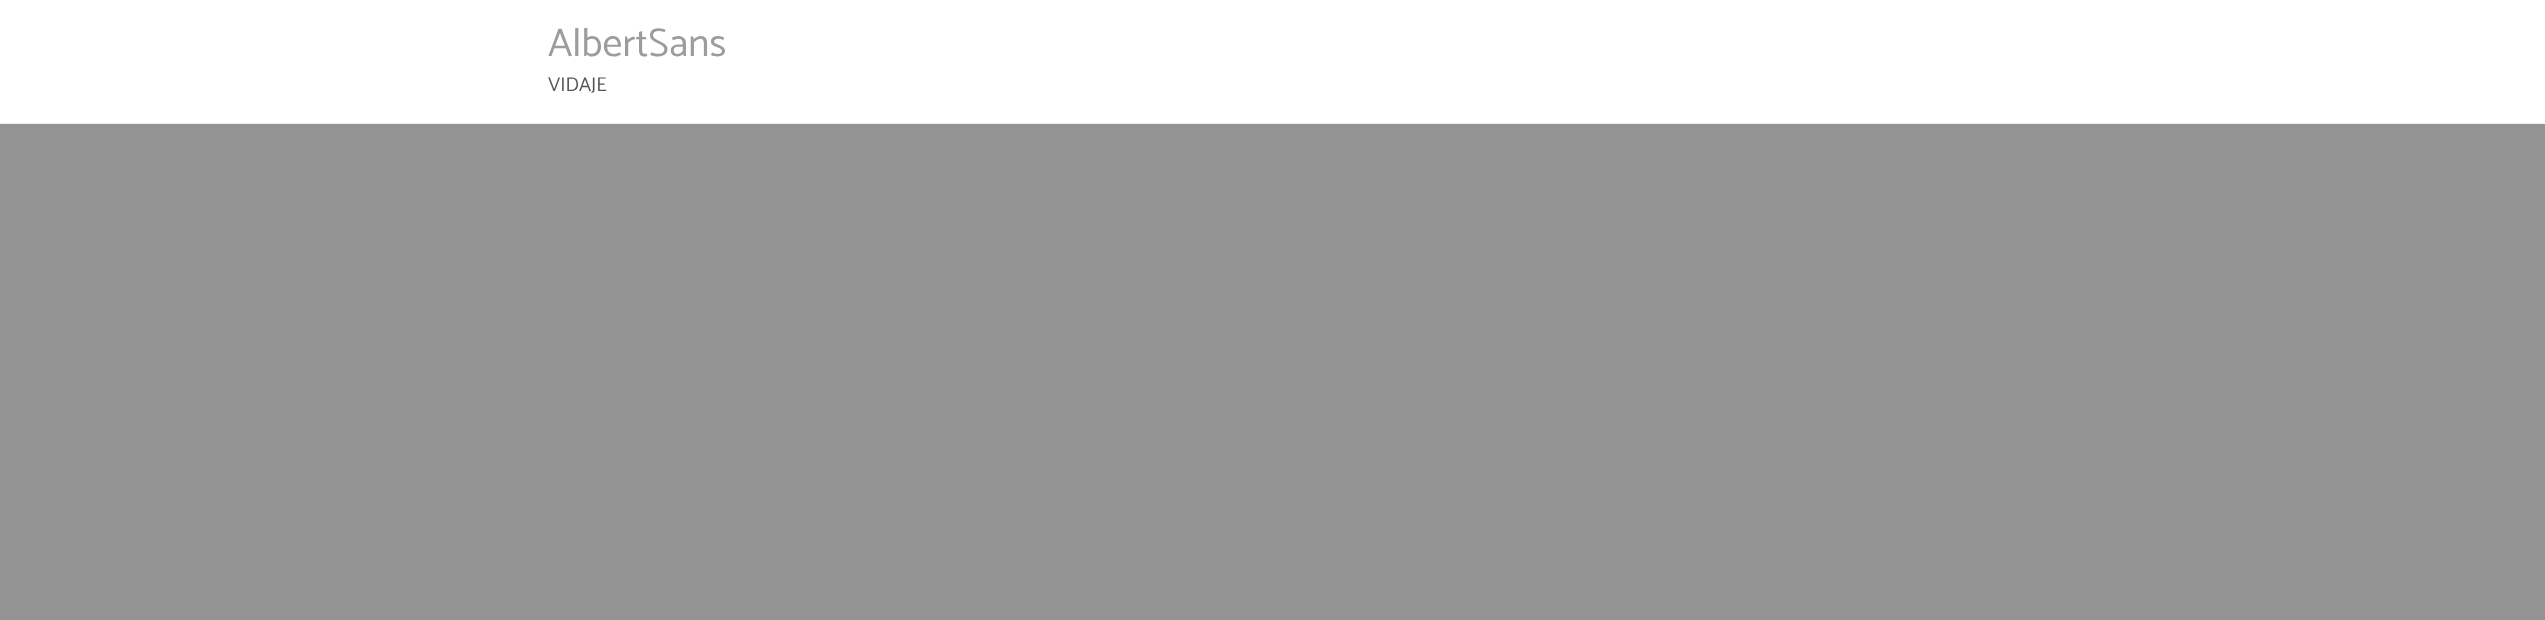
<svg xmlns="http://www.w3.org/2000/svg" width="2545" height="620">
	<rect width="100%" height="100%" fill="#939393" />
	<rect x="0" y="0" width="2545" height="123" fill="#FFFFFF" />
	<rect x="0" y="123" width="2545" height="1" fill="#EEEEEE" />
	<text x="548" y="56" font-family="Catamaran" font-size="40" fill="#9C9C9C">AlbertSans</text>
	<text x="548" y="91" font-family="Catamaran" font-size="20" fill="#555555">VIDAJE</text>
</svg>
